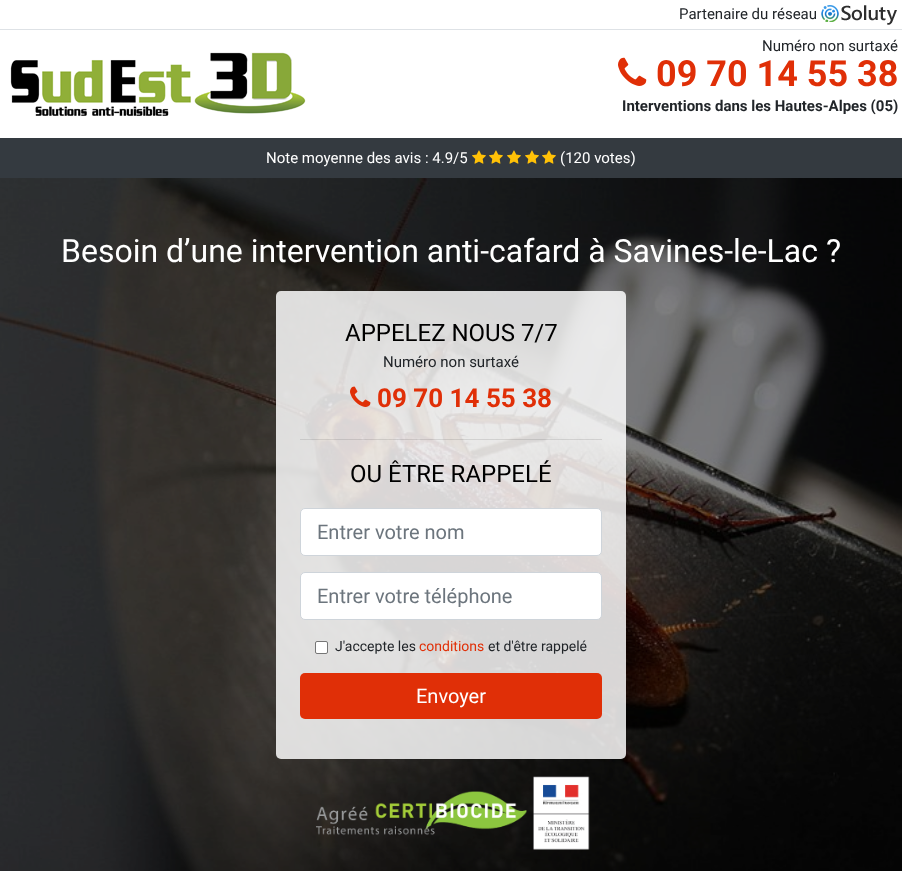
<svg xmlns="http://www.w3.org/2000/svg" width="902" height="871">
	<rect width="100%" height="100%" fill="#FFFFFF" />
	<rect x="0" y="29" width="902" height="1" fill="#DEE2E6" />
	<text x="679" y="19" font-family="Roboto" font-size="15" fill="#212529">Partenaire du réseau</text>
	<image x="821" y="5" width="76" height="20" href="assets/img1.png" />
	<text x="762" y="51" font-family="Roboto" font-size="15" fill="#212529">Numéro non surtaxé</text>
	<image x="10" y="52" width="296" height="64" href="assets/img2.png" />
	<image x="618" y="57" width="29" height="29" href="assets/img3.png" />
	<text x="656" y="86" font-family="Roboto" font-size="36" font-weight="700" fill="#E02F07">09 70 14 55 38</text>
	<text x="622" y="111" font-family="Roboto" font-size="15" font-weight="700" fill="#212529">Interventions dans les Hautes-Alpes (05)</text>
	<rect x="0" y="138" width="902" height="40" fill="#343A40" />
	<text x="266" y="163" font-family="Roboto" font-size="15" fill="#FFFFFF">Note moyenne des avis : 4.9/5</text>
	<image x="472" y="150" width="14" height="14" href="assets/img4.png" />
	<image x="489" y="150" width="14" height="14" href="assets/img4.png" />
	<image x="507" y="150" width="14" height="14" href="assets/img4.png" />
	<image x="525" y="150" width="14" height="14" href="assets/img4.png" />
	<image x="542" y="150" width="14" height="14" href="assets/img4.png" />
	<text x="560" y="163" font-family="Roboto" font-size="15" fill="#FFFFFF">(120 votes)</text>
	<image x="0" y="178" width="902" height="693" href="assets/img5.png" />
	<text x="61" y="262" font-family="Roboto" font-size="32" fill="#FFFFFF">Besoin d’une intervention anti-cafard à Savines-le-Lac ?</text>
	<rect x="276" y="291" width="350" height="468" rx="5" fill="#FFFFFF" fill-opacity="0.84" />
	<text x="345" y="341" font-family="Roboto" font-size="24" fill="#000000">APPELEZ NOUS 7/7</text>
	<text x="383" y="367" font-family="Roboto" font-size="15" fill="#212529">Numéro non surtaxé</text>
	<image x="350" y="386" width="21" height="21" href="assets/img6.png" />
	<text x="377" y="407" font-family="Roboto" font-size="26" font-weight="700" fill="#E02F07">09 70 14 55 38</text>
	<rect x="300" y="439" width="302" height="1" fill="#000000" fill-opacity="0.1" />
	<text x="350" y="482" font-family="Roboto" font-size="24" fill="#000000">OU ÊTRE RAPPELÉ</text>
	<rect x="300.5" y="508.5" width="301" height="47" rx="4.5" fill="#FFFFFF" stroke="#CED4DA" />
	<text x="317" y="539" font-family="Roboto" font-size="20" fill="#6C757D">Entrer votre nom</text>
	<rect x="300.5" y="572.5" width="301" height="47" rx="4.5" fill="#FFFFFF" stroke="#CED4DA" />
	<text x="317" y="603" font-family="Roboto" font-size="20" fill="#6C757D">Entrer votre téléphone</text>
	<rect x="315.5" y="641.5" width="12" height="12" rx="1.5" fill="#FFFFFF" stroke="#767676" />
	<text x="335" y="651" font-family="Roboto" font-size="14" fill="#212529">J'accepte les</text>
	<text x="419" y="651" font-family="Roboto" font-size="14" fill="#E02F07">conditions</text>
	<text x="488" y="651" font-family="Roboto" font-size="14" fill="#212529">et d'être rappelé</text>
	<rect x="300" y="673" width="302" height="46" rx="5" fill="#E02F07" />
	<text x="416" y="703" font-family="Roboto" font-size="20" fill="#FFFFFF">Envoyer</text>
	<image x="316" y="776" width="274" height="74" href="assets/img7.png" />
</svg>
